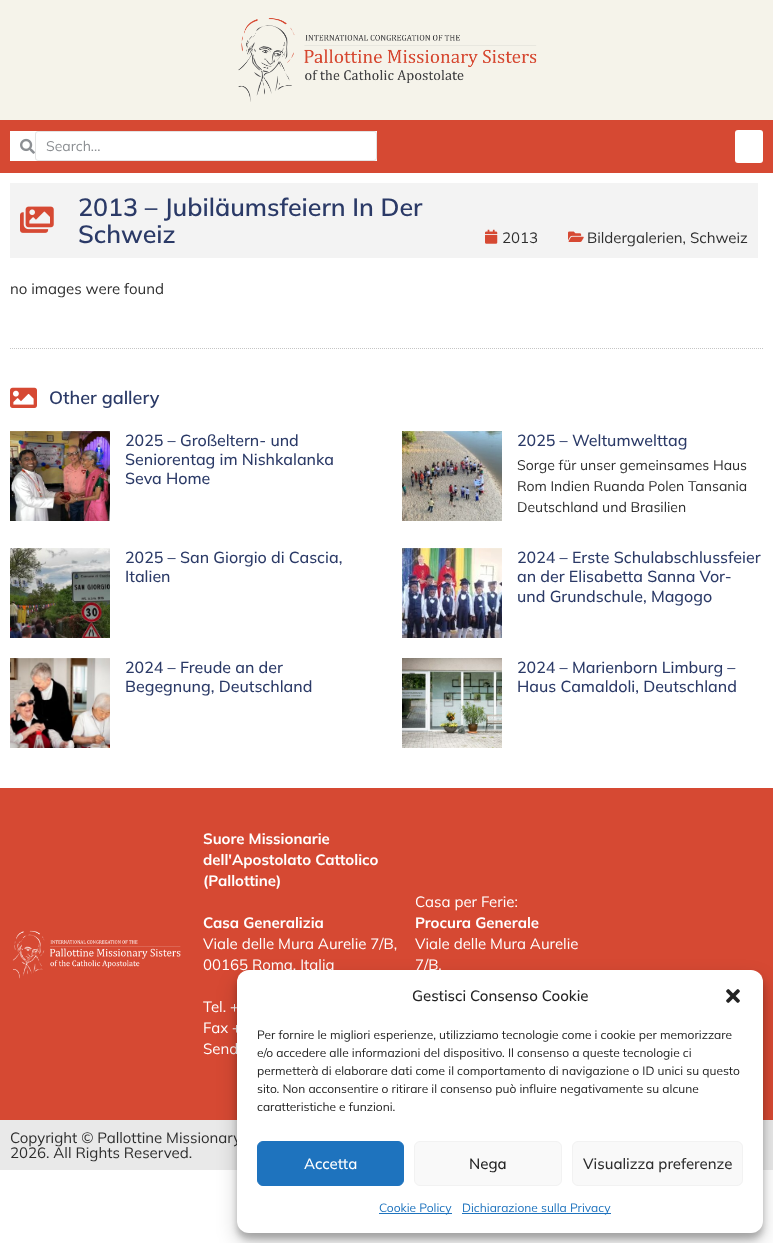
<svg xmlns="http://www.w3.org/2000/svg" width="773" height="1243">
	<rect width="100%" height="100%" fill="#FFFFFF" />
	<rect x="0" y="0" width="773" height="120" fill="#F5F3EA" />
	<image x="238" y="18" width="299" height="84" href="assets/img1.png" />
	<rect x="0" y="120" width="773" height="53" fill="#D64933" />
	<rect x="10" y="131" width="367" height="30" fill="#FFFFFF" />
	<image x="20" y="138" width="15" height="16" href="assets/img2.png" />
	<rect x="35.5" y="131.5" width="341" height="29" rx="2.5" fill="none" stroke="#E3E3E3" />
	<text x="46" y="151" font-family="Mulish" font-size="14" fill="#8C8F93">Search...</text>
	<rect x="735" y="130" width="28" height="33" rx="3" fill="#FFFFFF" />
	<rect x="10" y="183" width="748" height="75" fill="#F3F3F3" />
	<image x="20" y="206" width="34" height="27" href="assets/img3.png" />
	<g font-family="Mulish" font-size="25" font-weight="600" fill="#2B3A67">
		<text x="78" y="216">2013 – Jubiläumsfeiern In Der</text>
		<text x="78" y="243">Schweiz</text>
	</g>
	<image x="485" y="229" width="13" height="15" href="assets/img4.png" />
	<text x="502" y="243" font-family="Mulish" font-size="15" fill="#2E2E2E">2013</text>
	<image x="568" y="231" width="16" height="11" href="assets/img5.png" />
	<g font-family="Mulish" font-size="15" fill="#2E2E2E">
		<text x="587" y="243">Bildergalerien, Schweiz</text>
		<text x="10" y="294">no images were found</text>
	</g>
	<path d="M10 348.5H763" fill="none" stroke="#C5C5C5" stroke-dasharray="1 1" />
	<image x="10" y="387" width="27" height="21" href="assets/img6.png" />
	<text x="49" y="404" font-family="Mulish" font-size="18" font-weight="600" fill="#2B3A67">Other gallery</text>
	<image x="10" y="431" width="100" height="90" href="assets/img7.png" />
	<g font-family="Mulish" font-size="16" font-weight="500" fill="#2B3A67">
		<text x="125" y="446">2025 – Großeltern- und</text>
		<text x="125" y="465">Seniorentag im Nishkalanka</text>
		<text x="125" y="484">Seva Home</text>
	</g>
	<image x="402" y="431" width="100" height="90" href="assets/img8.png" />
	<text x="517" y="446" font-family="Mulish" font-size="16" font-weight="500" fill="#2B3A67">2025 – Weltumwelttag</text>
	<g font-family="Mulish" font-size="14" fill="#2E2E2E">
		<text x="517" y="470">Sorge für unser gemeinsames Haus</text>
		<text x="517" y="491">Rom Indien Ruanda Polen Tansania</text>
		<text x="517" y="512">Deutschland und Brasilien</text>
	</g>
	<image x="10" y="548" width="100" height="90" href="assets/img9.png" />
	<g font-family="Mulish" font-size="16" font-weight="500" fill="#2B3A67">
		<text x="125" y="563">2025 – San Giorgio di Cascia,</text>
		<text x="125" y="582">Italien</text>
	</g>
	<image x="402" y="548" width="100" height="90" href="assets/img10.png" />
	<g font-family="Mulish" font-size="16" font-weight="500" fill="#2B3A67">
		<text x="517" y="563">2024 – Erste Schulabschlussfeier</text>
		<text x="517" y="582">an der Elisabetta Sanna Vor-</text>
		<text x="517" y="602">und Grundschule, Magogo</text>
	</g>
	<image x="10" y="658" width="100" height="90" href="assets/img11.png" />
	<g font-family="Mulish" font-size="16" font-weight="500" fill="#2B3A67">
		<text x="125" y="673">2024 – Freude an der</text>
		<text x="125" y="692">Begegnung, Deutschland</text>
	</g>
	<image x="402" y="658" width="100" height="90" href="assets/img12.png" />
	<g font-family="Mulish" font-size="16" font-weight="500" fill="#2B3A67">
		<text x="517" y="673">2024 – Marienborn Limburg –</text>
		<text x="517" y="692">Haus Camaldoli, Deutschland</text>
	</g>
	<rect x="0" y="788" width="773" height="332" fill="#D64933" />
	<image x="12" y="930" width="169" height="49" href="assets/img13.png" />
	<g font-family="Mulish" font-size="15" font-weight="700" fill="#FFFFFF">
		<text x="203" y="844">Suore Missionarie</text>
		<text x="203" y="865">dell'Apostolato Cattolico</text>
		<text x="203" y="886">(Pallottine)</text>
		<text x="203" y="928">Casa Generalizia</text>
	</g>
	<g font-family="Mulish" font-size="15" fill="#FFFFFF">
		<text x="203" y="949">Viale delle Mura Aurelie 7/B,</text>
		<text x="203" y="970">00165 Roma, Italia</text>
		<text x="203" y="1012">Tel. +</text>
		<text x="203" y="1033">Fax +</text>
		<text x="203" y="1054">Send</text>
		<text x="415" y="907">Casa per Ferie:</text>
	</g>
	<text x="415" y="928" font-family="Mulish" font-size="15" font-weight="700" fill="#FFFFFF">Procura Generale</text>
	<g font-family="Mulish" font-size="15" fill="#FFFFFF">
		<text x="415" y="949">Viale delle Mura Aurelie</text>
		<text x="415" y="970">7/B,</text>
	</g>
	<rect x="0" y="1120" width="773" height="50" fill="#E9E9E9" />
	<g font-family="Mulish" font-size="15" fill="#2E2E2E">
		<text x="10" y="1143">Copyright © Pallottine Missionary</text>
		<text x="10" y="1158">2026. All Rights Reserved.</text>
	</g>
	<rect x="237" y="976" width="526" height="263" rx="12" fill="#000000" fill-opacity="0.23" filter="blur(3px)" />
	<rect x="237" y="980" width="526" height="263" rx="12" fill="#000000" fill-opacity="0.19" filter="blur(10px)" />
	<rect x="237" y="970" width="526" height="263" rx="12" fill="#FFFFFF" />
	<text x="412" y="1001" font-family="Mulish" font-size="15" font-weight="500" fill="#222222">Gestisci Consenso Cookie</text>
	<image x="726" y="989" width="14" height="14" href="assets/img14.png" />
	<g font-family="Mulish" font-size="12" fill="#222222">
		<text x="257" y="1039">Per fornire le migliori esperienze, utilizziamo tecnologie come i cookie per memorizzare</text>
		<text x="257" y="1057">e/o accedere alle informazioni del dispositivo. Il consenso a queste tecnologie ci</text>
		<text x="257" y="1075">permetterà di elaborare dati come il comportamento di navigazione o ID unici su questo</text>
		<text x="257" y="1093">sito. Non acconsentire o ritirare il consenso può influire negativamente su alcune</text>
		<text x="257" y="1111">caratteristiche e funzioni.</text>
	</g>
	<rect x="257.5" y="1141.5" width="146" height="44" rx="5.5" fill="#1E73BE" stroke="#1E73BE" />
	<text x="304" y="1169" font-family="Mulish" font-size="15" font-weight="500" fill="#FFFFFF">Accetta</text>
	<rect x="414.5" y="1141.5" width="147" height="44" rx="5.5" fill="#F9F9F9" stroke="#F2F2F2" />
	<text x="469" y="1169" font-family="Mulish" font-size="15" font-weight="500" fill="#222222">Nega</text>
	<rect x="572.5" y="1141.5" width="170" height="44" rx="5.5" fill="#F9F9F9" stroke="#F2F2F2" />
	<text x="583" y="1169" font-family="Mulish" font-size="15" font-weight="500" fill="#2E2E2E">Visualizza preferenze</text>
	<rect x="379" y="1213" width="73" height="1" fill="#1E73BE" />
	<text x="379" y="1212" font-family="Mulish" font-size="12" fill="#1E73BE">Cookie Policy</text>
	<rect x="462" y="1213" width="149" height="1" fill="#1E73BE" />
	<text x="462" y="1212" font-family="Mulish" font-size="12" fill="#1E73BE">Dichiarazione sulla Privacy</text>
</svg>
